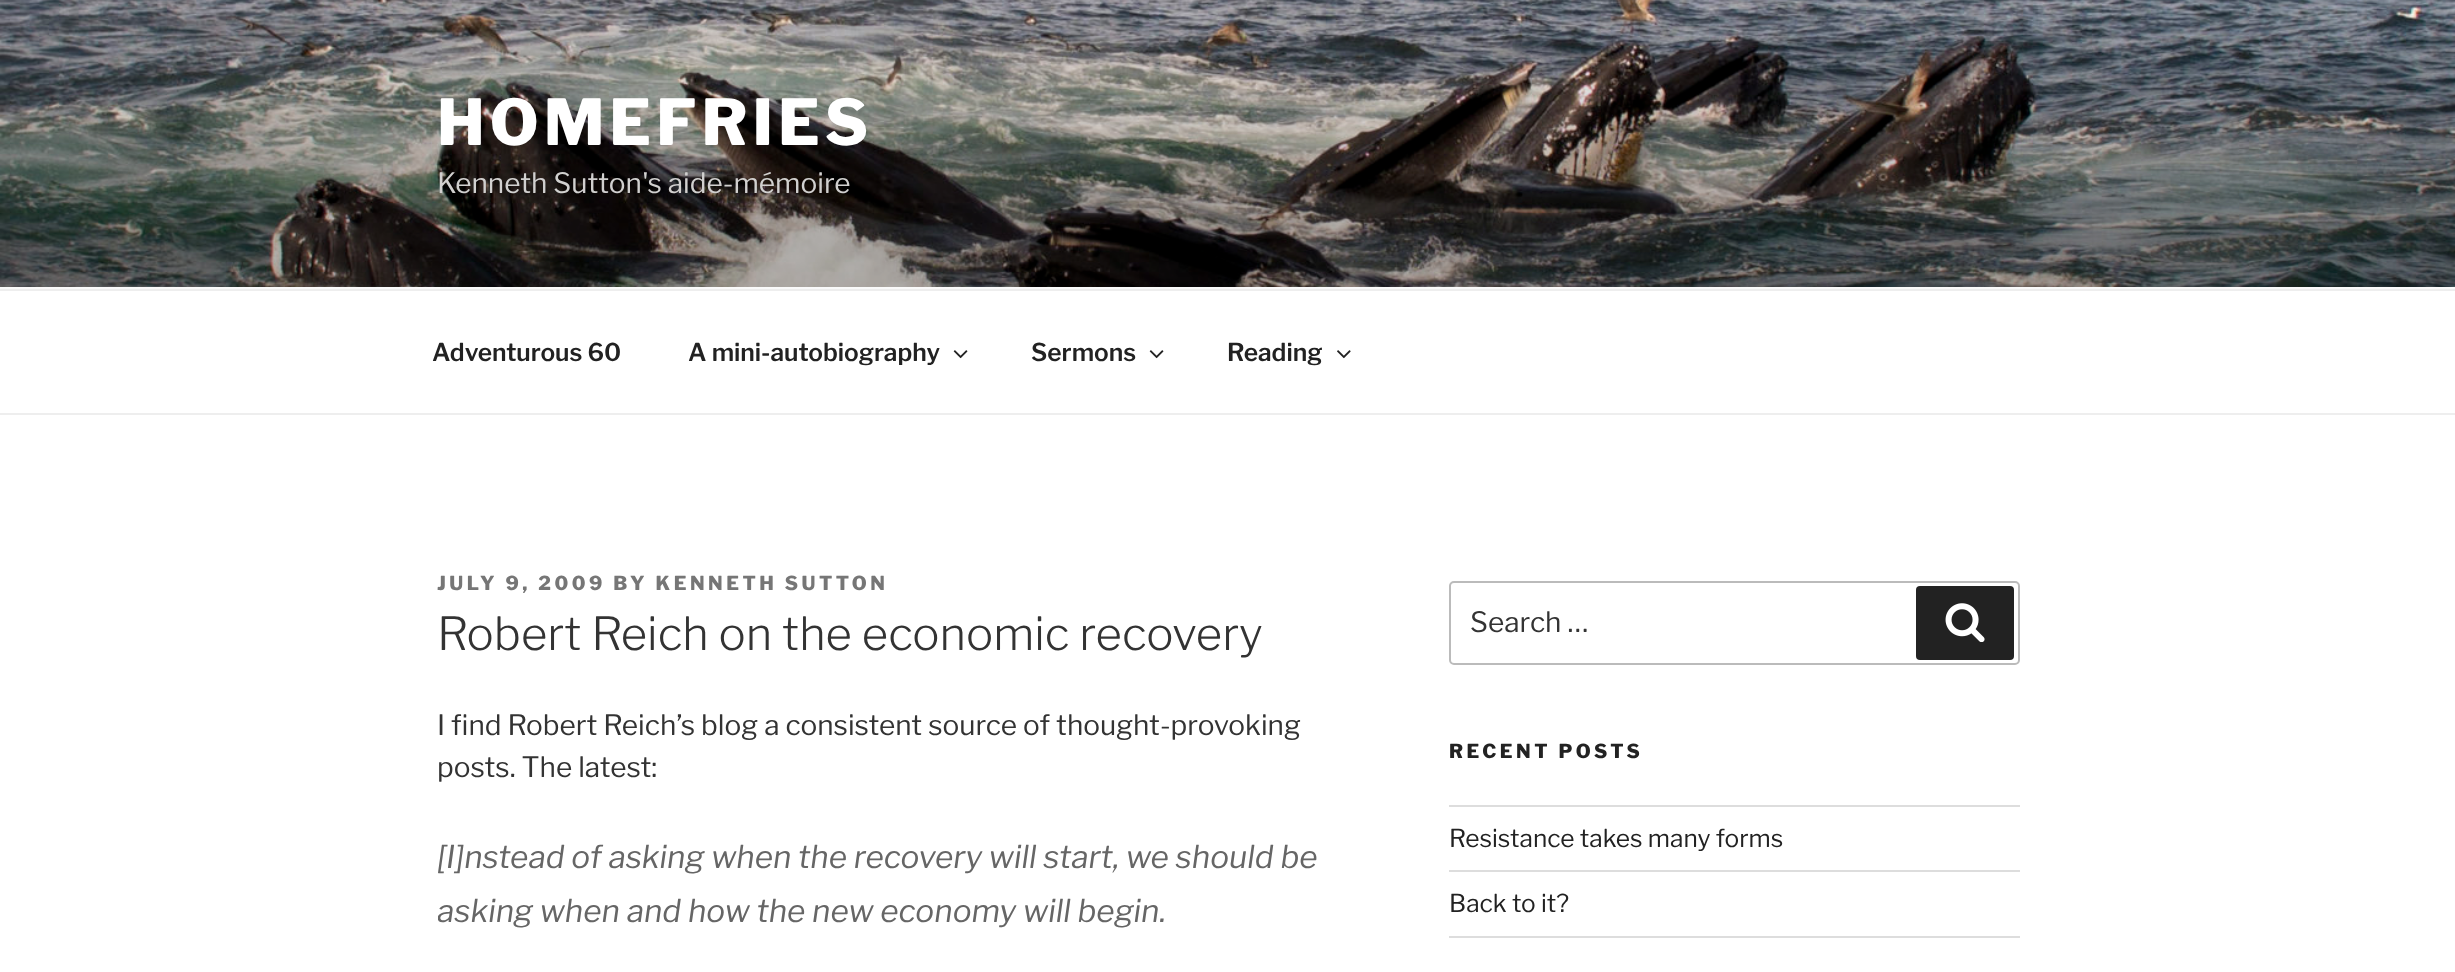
<svg xmlns="http://www.w3.org/2000/svg" width="2455" height="972">
	<defs>
		<clipPath id="clip1"><rect x="438" y="831" width="917" height="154" /></clipPath>
	</defs>
	<rect width="100%" height="100%" fill="#FFFFFF" />
	<rect x="0" y="287" width="2455" height="2" fill="#FAFAFA" />
	<image x="0" y="0" width="2455" height="287" href="assets/img1.png" />
	<text x="437" y="145" font-family="Libre Franklin" font-size="63" font-weight="100" letter-spacing="5" fill="#FFFFFF">HOMEFRIES</text>
	<text x="437" y="193" font-family="'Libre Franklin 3'" font-size="28" font-weight="100" fill="#D1D0CF">Kenneth Sutton's aide-mémoire</text>
	<rect x="0" y="289" width="2455" height="2" fill="#EEEEEE" />
	<rect x="0" y="413" width="2455" height="2" fill="#EEEEEE" />
	<g font-family="'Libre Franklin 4'" font-size="24.5" font-weight="100" fill="#222222">
		<text x="432" y="361">Adventurous 60</text>
		<text x="688" y="361">A mini-autobiography</text>
	</g>
	<image x="953" y="350" width="15" height="9" href="assets/img2.png" />
	<text x="1031" y="361" font-family="'Libre Franklin 4'" font-size="24.5" font-weight="100" fill="#222222">Sermons</text>
	<image x="1149" y="350" width="15" height="9" href="assets/img2.png" />
	<text x="1227" y="361" font-family="'Libre Franklin 4'" font-size="24.5" font-weight="100" fill="#222222">Reading</text>
	<image x="1337" y="350" width="14" height="9" href="assets/img3.png" />
	<text x="437" y="590" font-family="Libre Franklin" font-size="19.25" font-weight="100" letter-spacing="3.5" fill="#767676">JULY 9, 2009 BY KENNETH SUTTON</text>
	<text x="437" y="650" font-family="'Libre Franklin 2'" font-size="45.5" font-weight="100" fill="#333333">Robert Reich on the economic recovery</text>
	<g font-family="'Libre Franklin 3'" font-size="28" font-weight="100" fill="#333333">
		<text x="437" y="735">I find Robert Reich’s blog a consistent source of thought-provoking</text>
		<text x="437" y="777">posts. The latest:</text>
	</g>
	<text x="437" y="868" font-family="Libre Franklin" font-size="31.5" font-weight="100" font-style="italic" fill="#666666">[I]nstead of asking when the recovery will start, we should be</text>
	<g clip-path="url(#clip1)">
		<text x="437" y="922" font-family="Libre Franklin" font-size="31.5" font-weight="100" font-style="italic" fill="#666666">asking when and how the new economy will begin.</text>
	</g>
	<rect x="1450" y="582" width="569" height="82" rx="4" fill="none" stroke="#BBBBBB" stroke-width="2" />
	<text x="1470" y="632" font-family="'Libre Franklin 3'" font-size="28" font-weight="100" fill="#333333">Search …</text>
	<rect x="1916" y="586" width="98" height="74" rx="4" fill="#222222" />
	<image x="1945" y="603" width="40" height="39" href="assets/img4.png" />
	<text x="1449" y="758" font-family="Libre Franklin" font-size="19.25" font-weight="100" letter-spacing="3.5" fill="#222222">RECENT POSTS</text>
	<rect x="1449" y="805" width="571" height="2" fill="#DDDDDD" />
	<rect x="1449" y="870" width="571" height="2" fill="#DDDDDD" />
	<text x="1449" y="847" font-family="'Libre Franklin 3'" font-size="24.5" font-weight="100" fill="#222222">Resistance takes many forms</text>
	<rect x="1449" y="936" width="571" height="2" fill="#DDDDDD" />
	<text x="1449" y="912" font-family="'Libre Franklin 3'" font-size="24.5" font-weight="100" fill="#222222">Back to it?</text>
</svg>
